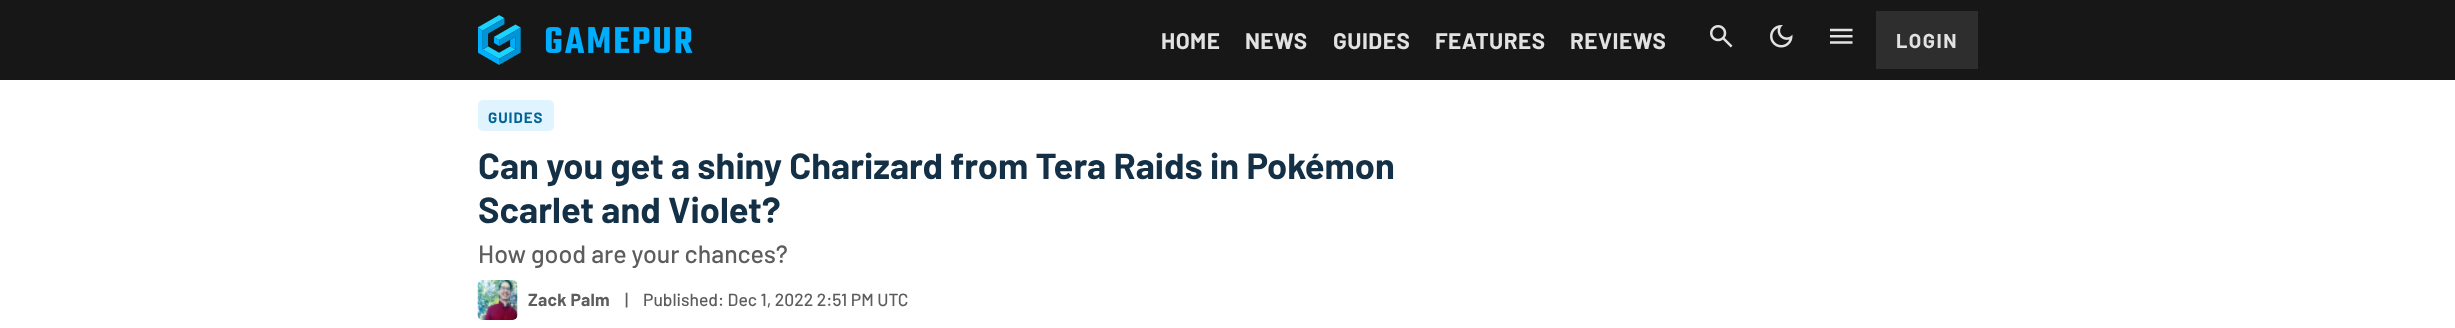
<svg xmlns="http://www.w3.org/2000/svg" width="2455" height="328">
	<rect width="100%" height="100%" fill="#FFFFFF" />
	<rect x="0" y="0" width="2455" height="80" fill="#171717" />
	<image x="478" y="15" width="215" height="50" href="assets/img1.png" />
	<g font-family="Barlow" font-size="22.5" font-weight="700" letter-spacing="0.5" fill="#E2E2E2">
		<text x="1161" y="49">HOME</text>
		<text x="1245" y="49">NEWS</text>
		<text x="1333" y="49">GUIDES</text>
		<text x="1435" y="49">FEATURES</text>
		<text x="1570" y="49">REVIEWS</text>
	</g>
	<image x="1710" y="25" width="23" height="23" href="assets/img2.png" />
	<image x="1770" y="25" width="23" height="23" href="assets/img3.png" />
	<image x="1830" y="28" width="23" height="16" href="assets/img4.png" />
	<rect x="1876" y="11" width="102" height="58" fill="#2E2E2E" />
	<text x="1896" y="48" font-family="Barlow" font-size="20" font-weight="700" letter-spacing="1.5" fill="#E2E2E2">LOGIN</text>
	<rect x="478" y="100" width="76" height="31" rx="5" fill="#E0F4FF" />
	<text x="488" y="123" font-family="Barlow" font-size="15" font-weight="700" letter-spacing="1" fill="#006295">GUIDES</text>
	<g font-family="Barlow" font-size="36.25" font-weight="700" fill="#133046">
		<text x="478" y="179">Can you get a shiny Charizard from Tera Raids in Pokémon</text>
		<text x="478" y="223">Scarlet and Violet?</text>
	</g>
	<text x="478" y="263" font-family="Barlow" font-size="25" font-weight="500" fill="#5D5D5D">How good are your chances?</text>
	<image x="477" y="280" width="41" height="40" href="assets/img5.png" />
	<text x="528" y="306" font-family="Barlow" font-size="17.5" font-weight="700" letter-spacing="0.25" fill="#5D5D5D">Zack Palm</text>
	<g font-family="Barlow" font-size="17.5" font-weight="500" fill="#5D5D5D">
		<text x="625" y="306">|</text>
		<text x="643" y="306">Published: Dec 1, 2022 2:51 PM UTC</text>
	</g>
</svg>
